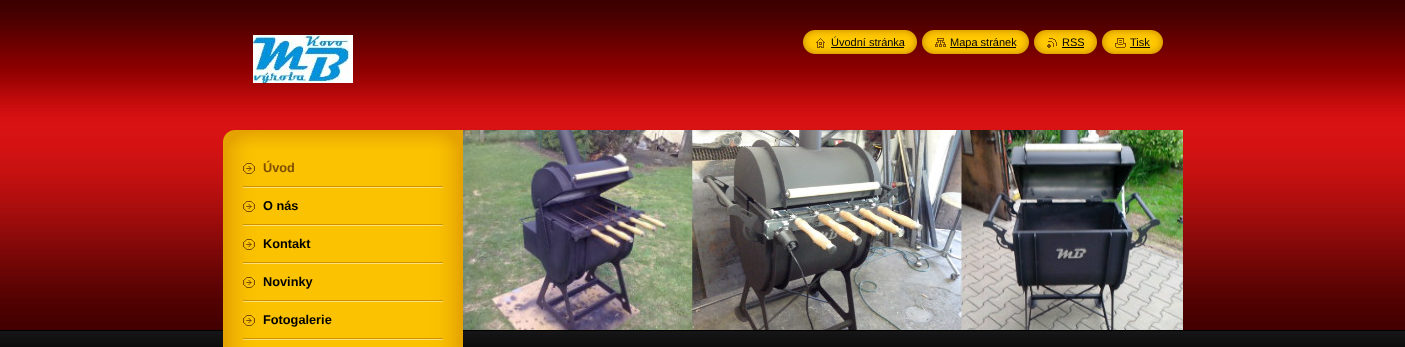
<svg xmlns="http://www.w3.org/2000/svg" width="1405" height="347">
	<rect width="100%" height="100%" fill="#FFFFFF" />
	<image x="0" y="0" width="1405" height="347" href="assets/img1.png" />
	<image x="253" y="35" width="100" height="48" href="assets/img2.png" />
	<image x="803" y="30" width="13" height="24" href="assets/img3.png" />
	<image x="816" y="30" width="101" height="24" href="assets/img4.png" />
	<image x="816" y="38" width="9" height="10" href="assets/img5.png" />
	<text x="831" y="46" font-family="Liberation Sans" font-size="11" fill="#000000">Úvodní stránka</text>
	<rect x="831" y="47" width="73" height="1" fill="#000000" />
	<image x="922" y="30" width="13" height="24" href="assets/img3.png" />
	<image x="935" y="30" width="94" height="24" href="assets/img6.png" />
	<image x="935" y="38" width="11" height="9" href="assets/img7.png" />
	<rect x="950" y="47" width="66" height="1" fill="#000000" />
	<text x="950" y="46" font-family="Liberation Sans" font-size="11" fill="#000000">Mapa stránek</text>
	<image x="1034" y="30" width="13" height="24" href="assets/img3.png" />
	<image x="1047" y="30" width="50" height="24" href="assets/img8.png" />
	<image x="1047" y="38" width="10" height="10" href="assets/img9.png" />
	<text x="1062" y="46" font-family="Liberation Sans" font-size="11" fill="#000000">RSS</text>
	<rect x="1062" y="47" width="22" height="1" fill="#000000" />
	<image x="1102" y="30" width="13" height="24" href="assets/img3.png" />
	<image x="1115" y="30" width="48" height="24" href="assets/img10.png" />
	<image x="1115" y="38" width="11" height="10" href="assets/img11.png" />
	<text x="1130" y="46" font-family="Liberation Sans" font-size="11" fill="#000000">Tisk</text>
	<rect x="1130" y="47" width="20" height="1" fill="#000000" />
	<image x="223" y="130" width="240" height="20" href="assets/img12.png" />
	<image x="223" y="150" width="240" height="197" href="assets/img13.png" />
	<image x="243" y="186" width="200" height="2" href="assets/img14.png" />
	<image x="243" y="163" width="12" height="11" href="assets/img15.png" />
	<text x="263" y="172" font-family="Liberation Sans" font-size="12.75" font-weight="700" fill="#7F4F00">Úvod</text>
	<image x="243" y="224" width="200" height="2" href="assets/img14.png" />
	<image x="243" y="201" width="12" height="11" href="assets/img15.png" />
	<text x="263" y="210" font-family="Liberation Sans" font-size="12.75" font-weight="700" fill="#000000">O nás</text>
	<image x="243" y="262" width="200" height="2" href="assets/img14.png" />
	<image x="243" y="239" width="12" height="11" href="assets/img15.png" />
	<text x="263" y="248" font-family="Liberation Sans" font-size="12.75" font-weight="700" fill="#000000">Kontakt</text>
	<image x="243" y="300" width="200" height="2" href="assets/img14.png" />
	<image x="243" y="277" width="12" height="11" href="assets/img15.png" />
	<text x="263" y="286" font-family="Liberation Sans" font-size="12.75" font-weight="700" fill="#000000">Novinky</text>
	<image x="243" y="338" width="200" height="2" href="assets/img14.png" />
	<image x="243" y="315" width="12" height="11" href="assets/img15.png" />
	<text x="263" y="324" font-family="Liberation Sans" font-size="12.75" font-weight="700" fill="#000000">Fotogalerie</text>
	<image x="463" y="130" width="720" height="200" href="assets/img16.png" />
</svg>
